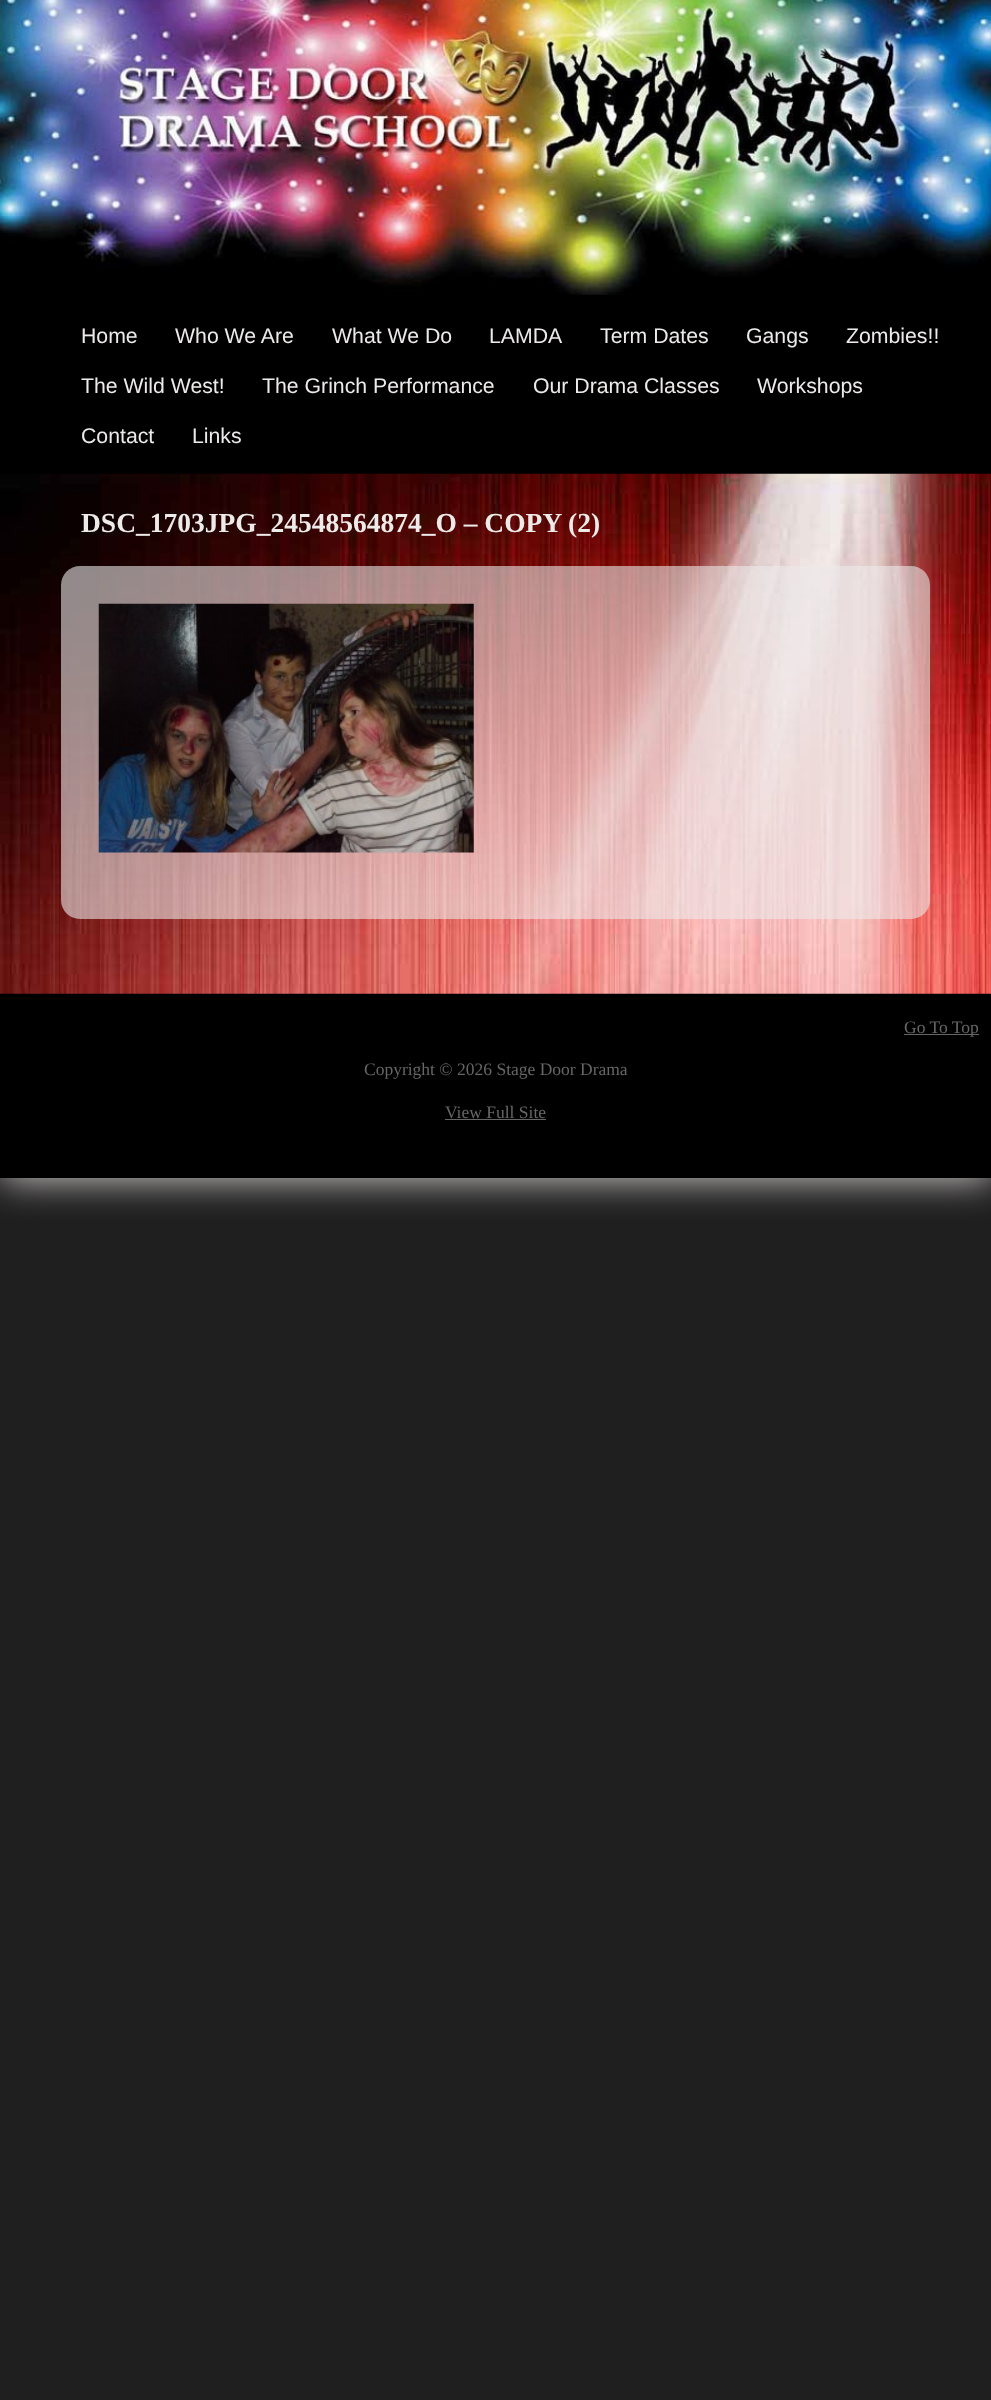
<svg xmlns="http://www.w3.org/2000/svg" width="991" height="2400">
	<rect width="100%" height="100%" fill="#1F1F1F" />
	<rect x="1" y="1" width="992" height="1178" fill="#D7D0D0" filter="blur(19px)" />
	<rect x="0" y="295" width="991" height="883" fill="#000000" />
	<image x="0" y="0" width="991" height="295" href="assets/img1.png" />
	<g font-family="Liberation Sans" font-size="21.25" fill="#EDEAEA">
		<text x="81" y="343">Home</text>
		<text x="175" y="343">Who We Are</text>
		<text x="332" y="343">What We Do</text>
		<text x="489" y="343">LAMDA</text>
		<text x="600" y="343">Term Dates</text>
		<text x="746" y="343">Gangs</text>
		<text x="846" y="343">Zombies!!</text>
		<text x="81" y="393">The Wild West!</text>
		<text x="262" y="393">The Grinch Performance</text>
		<text x="533" y="393">Our Drama Classes</text>
		<text x="757" y="393">Workshops</text>
		<text x="81" y="443">Contact</text>
		<text x="192" y="443">Links</text>
	</g>
	<image x="0" y="473" width="991" height="521" href="assets/img2.png" />
	<text x="81" y="532" font-family="Liberation Serif" font-size="27.5" font-weight="700" fill="#EDEAEA">DSC_1703JPG_24548564874_O – COPY (2)</text>
	<rect x="61" y="566" width="869" height="353" rx="19" fill="#EDEAEA" fill-opacity="0.59" />
	<image x="98" y="603" width="376" height="250" href="assets/img3.png" />
	<rect x="904" y="1034" width="75" height="1" fill="#666666" />
	<g font-family="Liberation Serif" font-size="17.5" fill="#666666">
		<text x="904" y="1033">Go To Top</text>
		<text x="364" y="1075">Copyright © 2026 Stage Door Drama</text>
		<text x="445" y="1118">View Full Site</text>
	</g>
	<rect x="445" y="1119" width="101" height="1" fill="#666666" />
</svg>
